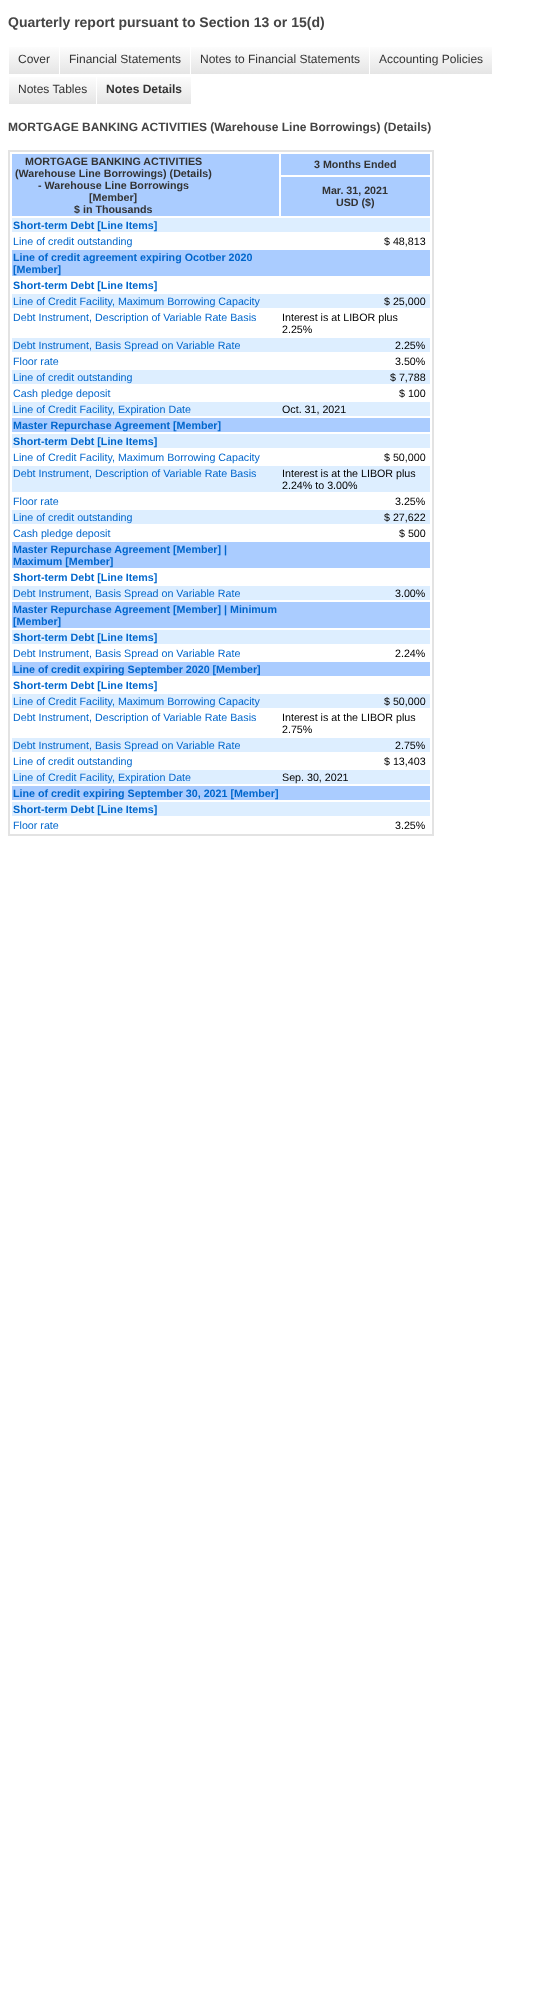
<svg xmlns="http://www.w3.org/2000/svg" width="548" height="1993">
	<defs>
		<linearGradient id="g1" gradientUnits="userSpaceOnUse" x1="34" y1="44" x2="34" y2="74"><stop offset="0" stop-color="#FFFFFF" /><stop offset="1" stop-color="#E5E5E5" /></linearGradient>
		<linearGradient id="g2" gradientUnits="userSpaceOnUse" x1="125" y1="44" x2="125" y2="74"><stop offset="0" stop-color="#FFFFFF" /><stop offset="1" stop-color="#E5E5E5" /></linearGradient>
		<linearGradient id="g3" gradientUnits="userSpaceOnUse" x1="280" y1="44" x2="280" y2="74"><stop offset="0" stop-color="#FFFFFF" /><stop offset="1" stop-color="#E5E5E5" /></linearGradient>
		<linearGradient id="g4" gradientUnits="userSpaceOnUse" x1="431" y1="44" x2="431" y2="74"><stop offset="0" stop-color="#FFFFFF" /><stop offset="1" stop-color="#E5E5E5" /></linearGradient>
		<linearGradient id="g5" gradientUnits="userSpaceOnUse" x1="53" y1="74" x2="53" y2="104"><stop offset="0" stop-color="#FFFFFF" /><stop offset="1" stop-color="#E5E5E5" /></linearGradient>
		<linearGradient id="g6" gradientUnits="userSpaceOnUse" x1="144" y1="74" x2="144" y2="104"><stop offset="0" stop-color="#FFFFFF" /><stop offset="1" stop-color="#E5E5E5" /></linearGradient>
	</defs>
	<rect width="100%" height="100%" fill="#FFFFFF" />
	<text x="8" y="27" font-family="Liberation Sans" font-size="14" font-weight="700" fill="#454545">Quarterly report pursuant to Section 13 or 15(d)</text>
	<rect x="9" y="47" width="50" height="27" fill="url(#g1)" />
	<text x="18" y="63" font-family="Liberation Sans" font-size="12" fill="#333333">Cover</text>
	<rect x="60" y="47" width="130" height="27" fill="url(#g2)" />
	<text x="69" y="63" font-family="Liberation Sans" font-size="12" fill="#333333">Financial Statements</text>
	<rect x="191" y="47" width="178" height="27" fill="url(#g3)" />
	<text x="200" y="63" font-family="Liberation Sans" font-size="12" fill="#333333">Notes to Financial Statements</text>
	<rect x="370" y="47" width="122" height="27" fill="url(#g4)" />
	<text x="379" y="63" font-family="Liberation Sans" font-size="12" fill="#333333">Accounting Policies</text>
	<rect x="9" y="77" width="87" height="27" fill="url(#g5)" />
	<text x="18" y="93" font-family="Liberation Sans" font-size="12" fill="#333333">Notes Tables</text>
	<rect x="97" y="77" width="94" height="27" fill="url(#g6)" />
	<text x="106" y="93" font-family="Liberation Sans" font-size="12" font-weight="700" fill="#333333">Notes Details</text>
	<text x="8" y="131" font-family="Liberation Sans" font-size="12" font-weight="700" fill="#454545">MORTGAGE BANKING ACTIVITIES (Warehouse Line Borrowings) (Details)</text>
	<rect x="9" y="151" width="424" height="684" fill="none" stroke="#E3E3E3" stroke-width="2" />
	<rect x="12" y="154" width="267" height="62" fill="#AACCFF" />
	<g font-family="Liberation Sans" font-size="10.7" font-weight="700" fill="#333333">
		<text x="25" y="165">MORTGAGE BANKING ACTIVITIES</text>
		<text x="15" y="177">(Warehouse Line Borrowings) (Details)</text>
		<text x="38" y="189">- Warehouse Line Borrowings</text>
		<text x="89" y="201">[Member]</text>
		<text x="74" y="213">$ in Thousands</text>
	</g>
	<rect x="281" y="154" width="149" height="21" fill="#AACCFF" />
	<text x="314" y="168" font-family="Liberation Sans" font-size="10.7" font-weight="700" fill="#333333">3 Months Ended</text>
	<rect x="281" y="177" width="149" height="39" fill="#AACCFF" />
	<g font-family="Liberation Sans" font-size="10.7" font-weight="700" fill="#333333">
		<text x="322" y="194">Mar. 31, 2021</text>
		<text x="336" y="206">USD ($)</text>
	</g>
	<rect x="12" y="218" width="418" height="14" fill="#DDEEFF" />
	<text x="13" y="229" font-family="Liberation Sans" font-size="10.7" font-weight="700" fill="#0066CC">Short-term Debt [Line Items]</text>
	<text x="13" y="245" font-family="Liberation Sans" font-size="10.7" fill="#0066CC">Line of credit outstanding</text>
	<text x="384" y="245" font-family="Liberation Sans" font-size="10.7" fill="#000000">$ 48,813</text>
	<rect x="12" y="250" width="418" height="26" fill="#AACCFF" />
	<g font-family="Liberation Sans" font-size="10.7" font-weight="700" fill="#0066CC">
		<text x="13" y="261">Line of credit agreement expiring Ocotber 2020</text>
		<text x="13" y="273">[Member]</text>
		<text x="13" y="289">Short-term Debt [Line Items]</text>
	</g>
	<rect x="12" y="294" width="418" height="14" fill="#DDEEFF" />
	<text x="13" y="305" font-family="Liberation Sans" font-size="10.7" fill="#0066CC">Line of Credit Facility, Maximum Borrowing Capacity</text>
	<text x="384" y="305" font-family="Liberation Sans" font-size="10.7" fill="#000000">$ 25,000</text>
	<text x="13" y="321" font-family="Liberation Sans" font-size="10.7" fill="#0066CC">Debt Instrument, Description of Variable Rate Basis</text>
	<g font-family="Liberation Sans" font-size="10.7" fill="#000000">
		<text x="282" y="321">Interest is at LIBOR plus</text>
		<text x="282" y="333">2.25%</text>
	</g>
	<rect x="12" y="338" width="418" height="14" fill="#DDEEFF" />
	<text x="13" y="349" font-family="Liberation Sans" font-size="10.7" fill="#0066CC">Debt Instrument, Basis Spread on Variable Rate</text>
	<text x="395" y="349" font-family="Liberation Sans" font-size="10.7" fill="#000000">2.25%</text>
	<text x="13" y="365" font-family="Liberation Sans" font-size="10.7" fill="#0066CC">Floor rate</text>
	<text x="395" y="365" font-family="Liberation Sans" font-size="10.7" fill="#000000">3.50%</text>
	<rect x="12" y="370" width="418" height="14" fill="#DDEEFF" />
	<text x="13" y="381" font-family="Liberation Sans" font-size="10.7" fill="#0066CC">Line of credit outstanding</text>
	<text x="390" y="381" font-family="Liberation Sans" font-size="10.7" fill="#000000">$ 7,788</text>
	<text x="13" y="397" font-family="Liberation Sans" font-size="10.7" fill="#0066CC">Cash pledge deposit</text>
	<text x="399" y="397" font-family="Liberation Sans" font-size="10.7" fill="#000000">$ 100</text>
	<rect x="12" y="402" width="418" height="14" fill="#DDEEFF" />
	<text x="13" y="413" font-family="Liberation Sans" font-size="10.7" fill="#0066CC">Line of Credit Facility, Expiration Date</text>
	<text x="282" y="413" font-family="Liberation Sans" font-size="10.7" fill="#000000">Oct. 31, 2021</text>
	<rect x="12" y="418" width="418" height="14" fill="#AACCFF" />
	<text x="13" y="429" font-family="Liberation Sans" font-size="10.7" font-weight="700" fill="#0066CC">Master Repurchase Agreement [Member]</text>
	<rect x="12" y="434" width="418" height="14" fill="#DDEEFF" />
	<text x="13" y="445" font-family="Liberation Sans" font-size="10.7" font-weight="700" fill="#0066CC">Short-term Debt [Line Items]</text>
	<text x="13" y="461" font-family="Liberation Sans" font-size="10.7" fill="#0066CC">Line of Credit Facility, Maximum Borrowing Capacity</text>
	<text x="384" y="461" font-family="Liberation Sans" font-size="10.7" fill="#000000">$ 50,000</text>
	<rect x="12" y="466" width="418" height="26" fill="#DDEEFF" />
	<text x="13" y="477" font-family="Liberation Sans" font-size="10.7" fill="#0066CC">Debt Instrument, Description of Variable Rate Basis</text>
	<g font-family="Liberation Sans" font-size="10.7" fill="#000000">
		<text x="282" y="477">Interest is at the LIBOR plus</text>
		<text x="282" y="489">2.24% to 3.00%</text>
	</g>
	<text x="13" y="505" font-family="Liberation Sans" font-size="10.7" fill="#0066CC">Floor rate</text>
	<text x="395" y="505" font-family="Liberation Sans" font-size="10.7" fill="#000000">3.25%</text>
	<rect x="12" y="510" width="418" height="14" fill="#DDEEFF" />
	<text x="13" y="521" font-family="Liberation Sans" font-size="10.7" fill="#0066CC">Line of credit outstanding</text>
	<text x="384" y="521" font-family="Liberation Sans" font-size="10.7" fill="#000000">$ 27,622</text>
	<text x="13" y="537" font-family="Liberation Sans" font-size="10.7" fill="#0066CC">Cash pledge deposit</text>
	<text x="399" y="537" font-family="Liberation Sans" font-size="10.7" fill="#000000">$ 500</text>
	<rect x="12" y="542" width="418" height="26" fill="#AACCFF" />
	<g font-family="Liberation Sans" font-size="10.7" font-weight="700" fill="#0066CC">
		<text x="13" y="553">Master Repurchase Agreement [Member] |</text>
		<text x="13" y="565">Maximum [Member]</text>
		<text x="13" y="581">Short-term Debt [Line Items]</text>
	</g>
	<rect x="12" y="586" width="418" height="14" fill="#DDEEFF" />
	<text x="13" y="597" font-family="Liberation Sans" font-size="10.7" fill="#0066CC">Debt Instrument, Basis Spread on Variable Rate</text>
	<text x="395" y="597" font-family="Liberation Sans" font-size="10.7" fill="#000000">3.00%</text>
	<rect x="12" y="602" width="418" height="26" fill="#AACCFF" />
	<g font-family="Liberation Sans" font-size="10.7" font-weight="700" fill="#0066CC">
		<text x="13" y="613">Master Repurchase Agreement [Member] | Minimum</text>
		<text x="13" y="625">[Member]</text>
	</g>
	<rect x="12" y="630" width="418" height="14" fill="#DDEEFF" />
	<text x="13" y="641" font-family="Liberation Sans" font-size="10.7" font-weight="700" fill="#0066CC">Short-term Debt [Line Items]</text>
	<text x="13" y="657" font-family="Liberation Sans" font-size="10.7" fill="#0066CC">Debt Instrument, Basis Spread on Variable Rate</text>
	<text x="395" y="657" font-family="Liberation Sans" font-size="10.7" fill="#000000">2.24%</text>
	<rect x="12" y="662" width="418" height="14" fill="#AACCFF" />
	<g font-family="Liberation Sans" font-size="10.7" font-weight="700" fill="#0066CC">
		<text x="13" y="673">Line of credit expiring September 2020 [Member]</text>
		<text x="13" y="689">Short-term Debt [Line Items]</text>
	</g>
	<rect x="12" y="694" width="418" height="14" fill="#DDEEFF" />
	<text x="13" y="705" font-family="Liberation Sans" font-size="10.7" fill="#0066CC">Line of Credit Facility, Maximum Borrowing Capacity</text>
	<text x="384" y="705" font-family="Liberation Sans" font-size="10.7" fill="#000000">$ 50,000</text>
	<text x="13" y="721" font-family="Liberation Sans" font-size="10.7" fill="#0066CC">Debt Instrument, Description of Variable Rate Basis</text>
	<g font-family="Liberation Sans" font-size="10.7" fill="#000000">
		<text x="282" y="721">Interest is at the LIBOR plus</text>
		<text x="282" y="733">2.75%</text>
	</g>
	<rect x="12" y="738" width="418" height="14" fill="#DDEEFF" />
	<text x="13" y="749" font-family="Liberation Sans" font-size="10.7" fill="#0066CC">Debt Instrument, Basis Spread on Variable Rate</text>
	<text x="395" y="749" font-family="Liberation Sans" font-size="10.7" fill="#000000">2.75%</text>
	<text x="13" y="765" font-family="Liberation Sans" font-size="10.7" fill="#0066CC">Line of credit outstanding</text>
	<text x="384" y="765" font-family="Liberation Sans" font-size="10.7" fill="#000000">$ 13,403</text>
	<rect x="12" y="770" width="418" height="14" fill="#DDEEFF" />
	<text x="13" y="781" font-family="Liberation Sans" font-size="10.7" fill="#0066CC">Line of Credit Facility, Expiration Date</text>
	<text x="282" y="781" font-family="Liberation Sans" font-size="10.7" fill="#000000">Sep. 30, 2021</text>
	<rect x="12" y="786" width="418" height="14" fill="#AACCFF" />
	<text x="13" y="797" font-family="Liberation Sans" font-size="10.7" font-weight="700" fill="#0066CC">Line of credit expiring September 30, 2021 [Member]</text>
	<rect x="12" y="802" width="418" height="14" fill="#DDEEFF" />
	<text x="13" y="813" font-family="Liberation Sans" font-size="10.7" font-weight="700" fill="#0066CC">Short-term Debt [Line Items]</text>
	<text x="13" y="829" font-family="Liberation Sans" font-size="10.7" fill="#0066CC">Floor rate</text>
	<text x="395" y="829" font-family="Liberation Sans" font-size="10.7" fill="#000000">3.25%</text>
</svg>
